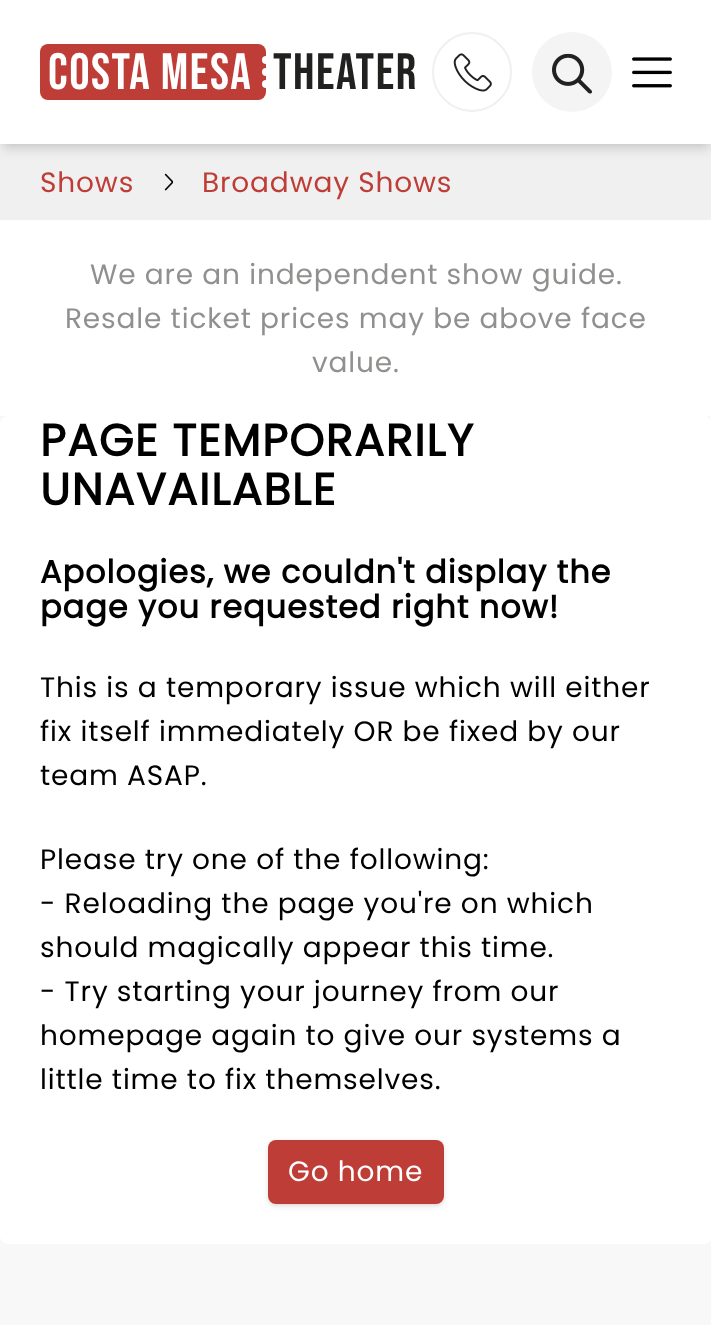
<svg xmlns="http://www.w3.org/2000/svg" width="711" height="1325">
	<rect width="100%" height="100%" fill="#F8F8F8" />
	<rect x="0" y="144" width="711" height="76" fill="#F0F0F0" />
	<rect x="4" y="8" width="704" height="136" fill="#000000" fill-opacity="0.1" filter="blur(4px)" />
	<rect x="2" y="10" width="708" height="140" fill="#000000" fill-opacity="0.1" filter="blur(6px)" />
	<rect x="0" y="0" width="711" height="144" fill="#FFFFFF" />
	<rect x="40" y="44" width="226" height="56" rx="8" fill="#BF3D37" />
	<text x="48" y="89" font-family="Bebas Neue" font-size="51" letter-spacing="1.5" fill="#FFFFFF">Costa Mesa</text>
	<circle cx="266" cy="60" r="4" fill="#FFFFFF" />
	<circle cx="266" cy="72" r="4" fill="#FFFFFF" />
	<circle cx="266" cy="84" r="4" fill="#FFFFFF" />
	<text x="273" y="89" font-family="Bebas Neue" font-size="51" letter-spacing="1.5" fill="#212120">Theater</text>
	<circle cx="472" cy="72" r="39" fill="none" stroke="#F0F0F0" stroke-width="2" />
	<image x="453" y="53" width="39" height="39" href="assets/img1.png" />
	<circle cx="572" cy="72" r="40" fill="#F4F4F4" />
	<image x="552" y="53" width="40" height="41" href="assets/img2.png" />
	<image x="632" y="57" width="40" height="31" href="assets/img3.png" />
	<text x="40" y="192" font-family="Poppins" font-size="28" letter-spacing="0.85" fill="#BF3D37">Shows</text>
	<image x="164" y="173" width="9" height="18" href="assets/img4.png" />
	<text x="202" y="192" font-family="Poppins" font-size="28" letter-spacing="0.85" fill="#BF3D37">Broadway Shows</text>
	<rect x="0" y="220" width="711" height="196" fill="#FFFFFF" />
	<g font-family="Poppins" font-size="28" letter-spacing="0.85" fill="#90908F">
		<text x="90" y="284">We are an independent show guide.</text>
		<text x="65" y="328">Resale ticket prices may be above face</text>
		<text x="312" y="372">value.</text>
	</g>
	<rect x="0" y="416" width="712" height="828" rx="8" fill="#FFFFFF" />
	<g font-family="Poppins" font-size="44.75" font-weight="700" letter-spacing="1.3" fill="#000000">
		<text x="40" y="456">PAGE TEMPORARILY</text>
		<text x="40" y="505">UNAVAILABLE</text>
	</g>
	<g font-family="Poppins" font-size="32" font-weight="700" letter-spacing="0.95" fill="#000000">
		<text x="40" y="583">Apologies, we couldn't display the</text>
		<text x="40" y="618">page you requested right now!</text>
	</g>
	<g font-family="Poppins" font-size="28" letter-spacing="0.85" fill="#000000">
		<text x="40" y="697">This is a temporary issue which will either</text>
		<text x="40" y="741">fix itself immediately OR be fixed by our</text>
		<text x="40" y="785">team ASAP.</text>
		<text x="40" y="869">Please try one of the following:</text>
		<text x="40" y="913">- Reloading the page you're on which</text>
		<text x="40" y="957">should magically appear this time.</text>
		<text x="40" y="1001">- Try starting your journey from our</text>
		<text x="40" y="1045">homepage again to give our systems a</text>
		<text x="40" y="1089">little time to fix themselves.</text>
	</g>
	<rect x="270" y="1144" width="172" height="60" rx="6" fill="#000000" fill-opacity="0.1" filter="blur(2px)" />
	<rect x="268" y="1142" width="176" height="64" rx="8" fill="#000000" fill-opacity="0.1" filter="blur(3px)" />
	<rect x="268" y="1140" width="176" height="64" rx="8" fill="#BF3D37" />
	<text x="288" y="1181" font-family="Poppins" font-size="28" letter-spacing="0.85" fill="#FFFFFF">Go home</text>
</svg>
